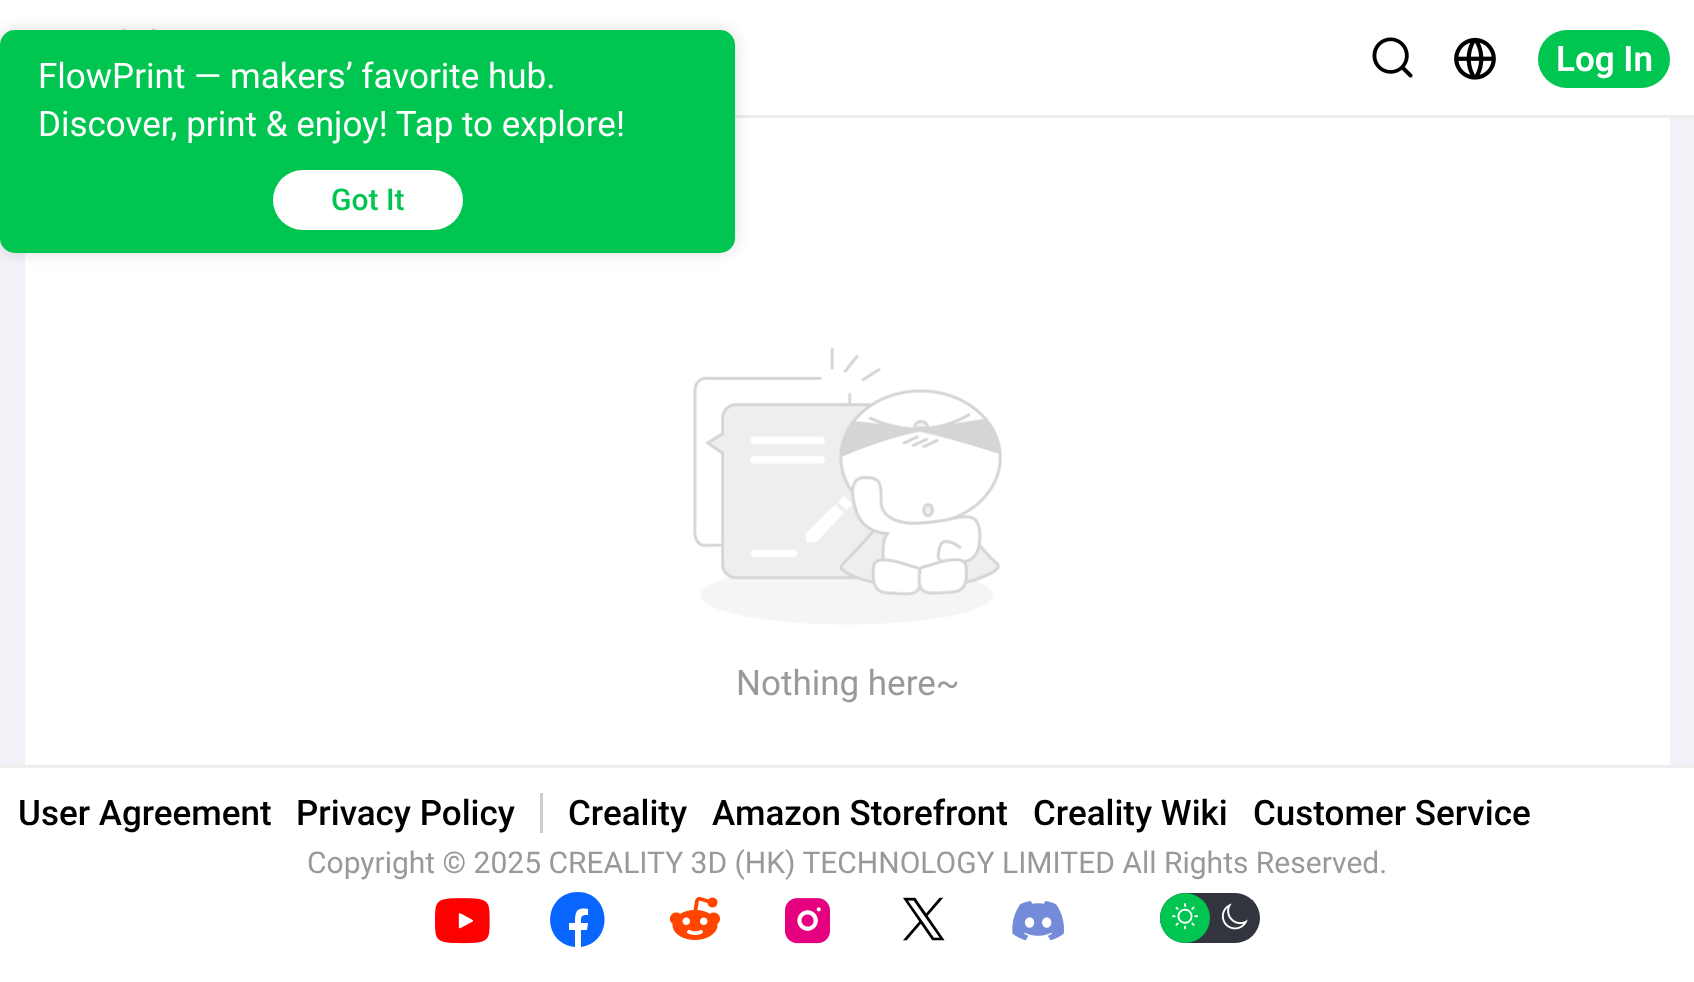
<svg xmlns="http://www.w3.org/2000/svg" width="1694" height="982">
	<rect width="100%" height="100%" fill="#F1F3F8" />
	<rect x="0" y="0" width="1694" height="115" fill="#FFFFFF" />
	<image x="122" y="28" width="33" height="2" href="assets/img1.png" />
	<image x="1372" y="37" width="41" height="41" href="assets/img2.png" />
	<image x="1454" y="37" width="42" height="43" href="assets/img3.png" />
	<rect x="1538" y="30" width="132" height="58" rx="29" fill="#00C651" />
	<text x="1556" y="71" font-family="Roboto" font-size="35" font-weight="600" fill="#FFFFFF">Log In</text>
	<rect x="735" y="115" width="959" height="3" fill="#EEEEEE" />
	<rect x="25" y="118" width="1645" height="647" fill="#FFFFFF" />
	<image x="693" y="347" width="309" height="278" href="assets/img4.png" />
	<text x="736" y="695" font-family="Roboto" font-size="35" fill="#999999">Nothing here~</text>
	<rect x="0" y="768" width="1694" height="214" fill="#FFFFFF" />
	<rect x="0" y="765" width="1694" height="3" fill="#EEEEEE" />
	<g font-family="Roboto" font-size="35" font-weight="500" fill="#000000">
		<text x="18" y="825">User Agreement</text>
		<text x="296" y="825">Privacy Policy</text>
	</g>
	<rect x="540" y="793" width="3" height="40" fill="#CCCCCC" />
	<g font-family="Roboto" font-size="35" font-weight="500" fill="#000000">
		<text x="568" y="825">Creality</text>
		<text x="712" y="825">Amazon Storefront</text>
		<text x="1033" y="825">Creality Wiki</text>
		<text x="1253" y="825">Customer Service</text>
	</g>
	<text x="307" y="873" font-family="Roboto" font-size="30" fill="#999999">Copyright © 2025 CREALITY 3D (HK) TECHNOLOGY LIMITED All Rights Reserved.</text>
	<image x="435" y="898" width="55" height="46" href="assets/img5.png" />
	<path d="M578 892C611 892 615 942 581 947V930H587L588 923H581C581 916 581 915 588 915V909C576 907 575 912 575 923H569V930H575V947C540 943 543 892 578 892Z" fill="#0866FF" />
	<image x="669" y="896" width="51" height="44" href="assets/img6.png" />
	<image x="785" y="898" width="45" height="46" href="assets/img7.png" />
	<image x="903" y="897" width="42" height="44" href="assets/img8.png" />
	<image x="1012" y="901" width="52" height="40" href="assets/img9.png" />
	<rect x="1160" y="893" width="100" height="50" rx="25" fill="#32353E" />
	<circle cx="1185" cy="918" r="25" fill="#00C651" />
	<image x="1171" y="903" width="28" height="27" href="assets/img10.png" />
	<image x="1221" y="903" width="27" height="27" href="assets/img11.png" />
	<rect x="0" y="30" width="735" height="223" rx="15" fill="#000000" fill-opacity="0.14" filter="blur(7.5px)" />
	<rect x="1.5" y="31.5" width="732" height="220" rx="13.5" fill="#00C651" stroke="#00C651" stroke-width="3" />
	<g font-family="Roboto" font-size="35" fill="#FFFFFF">
		<text x="38" y="88">FlowPrint — makers’ favorite hub.</text>
		<text x="38" y="136">Discover, print &amp; enjoy! Tap to explore!</text>
	</g>
	<rect x="273" y="170" width="190" height="60" rx="30" fill="#FFFFFF" />
	<text x="331" y="210" font-family="Roboto" font-size="30" font-weight="500" fill="#00C651">Got It</text>
</svg>
